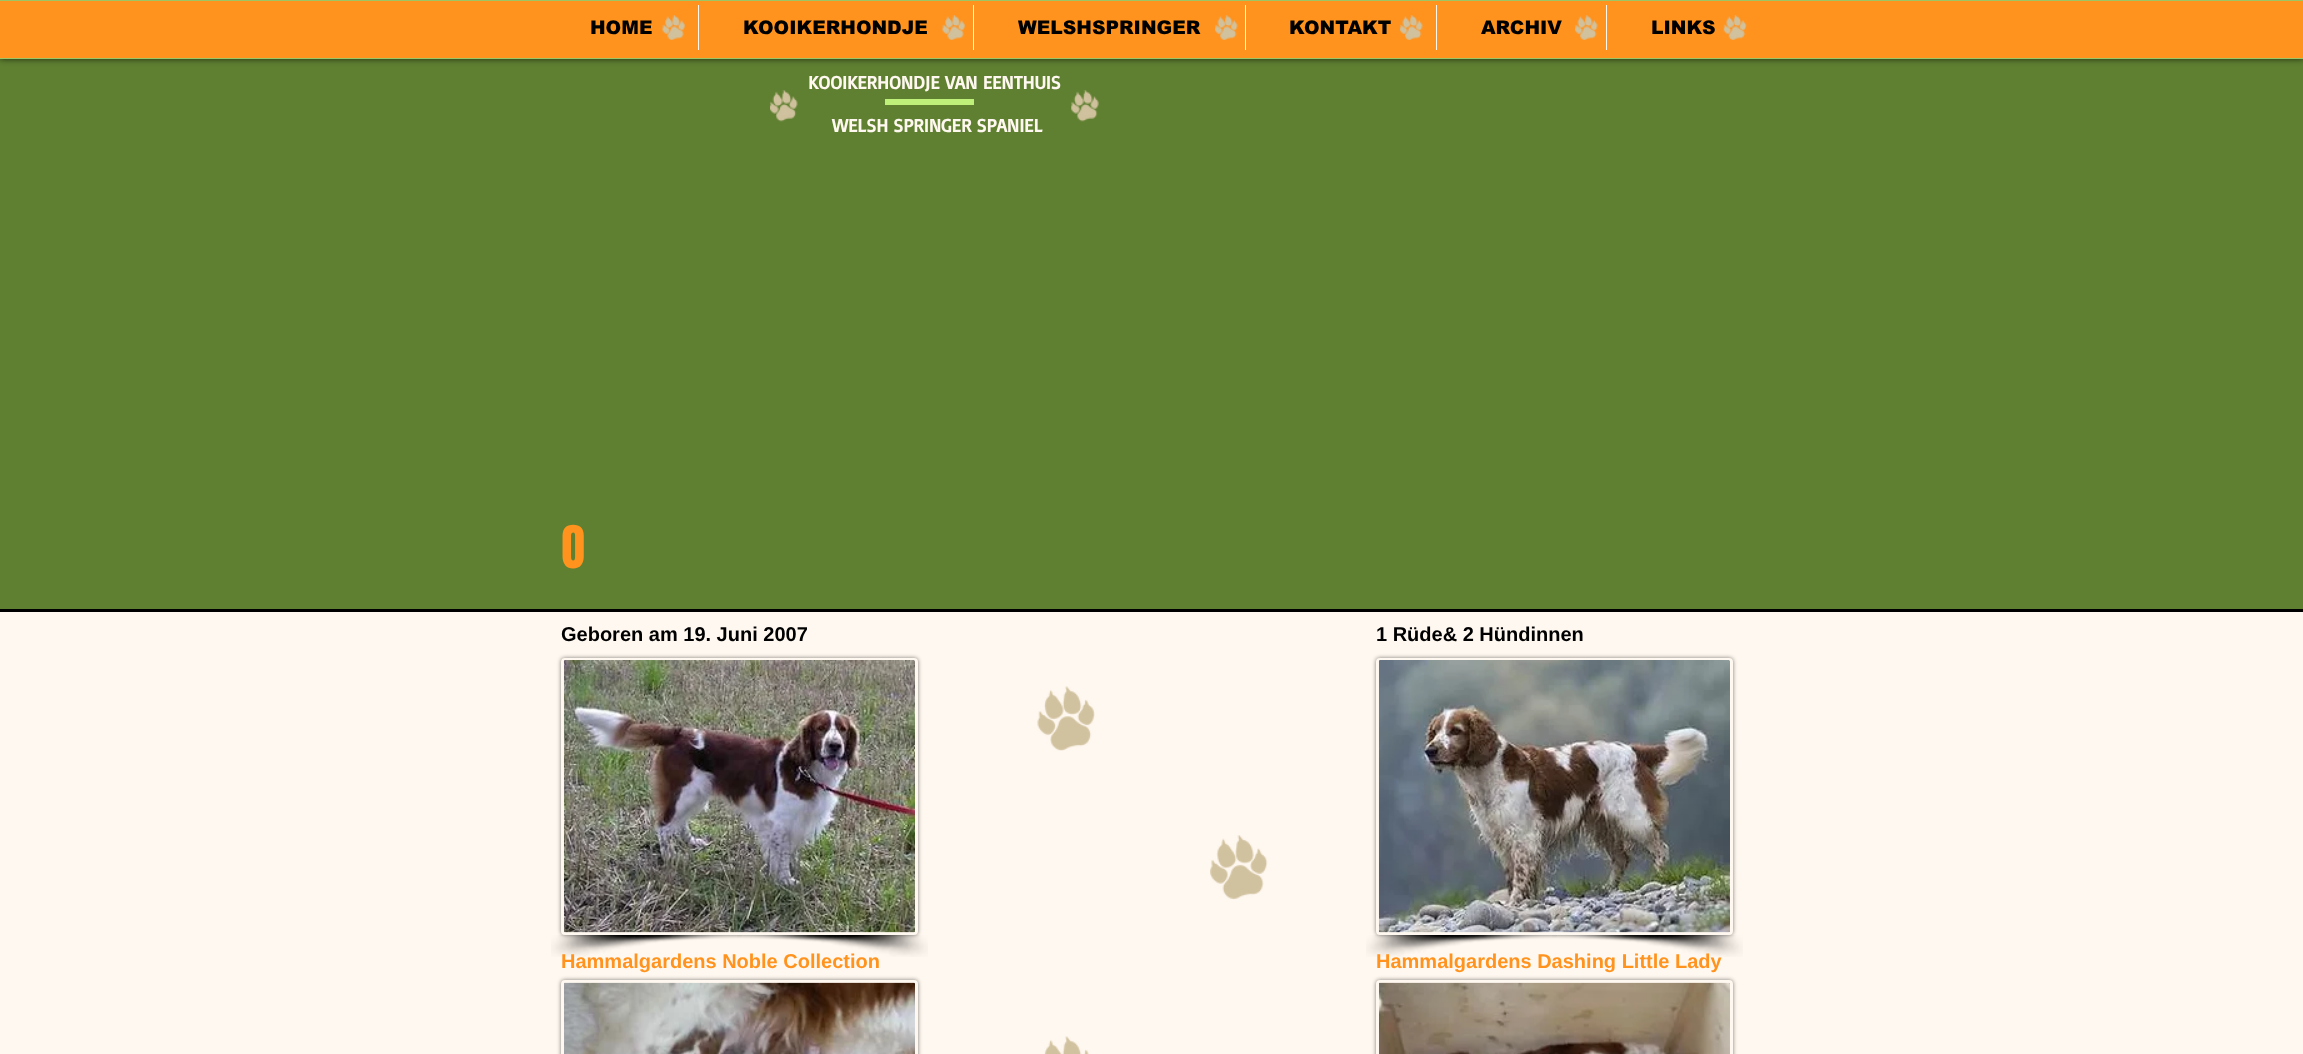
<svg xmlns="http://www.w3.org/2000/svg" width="2303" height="1054">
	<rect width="100%" height="100%" fill="#FFF8F0" />
	<rect x="0" y="59" width="2303" height="550" fill="#5F8031" />
	<rect x="0" y="0" width="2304" height="59" fill="#000000" fill-opacity="0.7" filter="blur(3px)" />
	<rect x="0" y="1" width="2303" height="57" fill="#FF931E" />
	<rect x="0" y="0" width="2303" height="1" fill="#9DC565" />
	<rect x="0" y="58" width="2303" height="1" fill="#9DC565" />
	<image x="662" y="15" width="23" height="25" href="assets/img1.png" />
	<image x="942" y="15" width="23" height="25" href="assets/img1.png" />
	<image x="1215" y="15" width="23" height="25" href="assets/img2.png" />
	<image x="1400" y="15" width="23" height="25" href="assets/img2.png" />
	<image x="1575" y="15" width="23" height="25" href="assets/img3.png" />
	<image x="1723" y="15" width="24" height="25" href="assets/img4.png" />
	<text x="590" y="34" font-family="arial" font-size="18.75" font-weight="900" fill="#000000">HOME</text>
	<rect x="698" y="5" width="1" height="45" fill="#FFF8F0" />
	<text x="743" y="34" font-family="arial" font-size="18.75" font-weight="900" fill="#000000">KOOIKERHONDJE</text>
	<rect x="973" y="5" width="1" height="45" fill="#FFF8F0" />
	<text x="1018" y="34" font-family="arial" font-size="18.75" font-weight="900" fill="#000000">WELSHSPRINGER</text>
	<rect x="1245" y="5" width="1" height="45" fill="#FFF8F0" />
	<text x="1289" y="34" font-family="arial" font-size="18.75" font-weight="900" fill="#000000">KONTAKT</text>
	<rect x="1436" y="5" width="1" height="45" fill="#FFF8F0" />
	<text x="1481" y="34" font-family="arial" font-size="18.75" font-weight="900" fill="#000000">ARCHIV</text>
	<rect x="1606" y="5" width="1" height="45" fill="#FFF8F0" />
	<text x="1651" y="34" font-family="arial" font-size="18.75" font-weight="900" fill="#000000">LINKS</text>
	<image x="770" y="90" width="28" height="32" href="assets/img5.png" />
	<g font-family="Basic" font-size="18.75" font-weight="700" fill="#FFF8F0">
		<text x="808" y="89">KOOIKERHONDJE VAN EENTHUIS</text>
		<text x="832" y="132">WELSH SPRINGER SPANIEL</text>
	</g>
	<image x="1071" y="90" width="28" height="32" href="assets/img6.png" />
	<rect x="885" y="99" width="89" height="6" fill="#BFF079" />
	<rect x="0" y="609" width="2303" height="3" fill="#000000" />
	<text x="561" y="568" font-family="Anton" font-size="50" fill="#FF931E">O</text>
	<g font-family="Liberation Sans" font-size="20" font-weight="700" fill="#000000">
		<text x="561" y="641">Geboren am 19. Juni 2007</text>
		<text x="1376" y="641">1 Rüde&amp; 2 Hündinnen</text>
	</g>
	<rect x="561" y="658" width="357" height="277" rx="4" fill="#000000" fill-opacity="0.5" filter="blur(2px)" />
	<rect x="562.5" y="659.5" width="354" height="274" rx="2.5" fill="none" stroke="#FFF8F0" stroke-width="3" />
	<image x="563" y="660" width="352" height="273" href="assets/img7.png" />
	<image x="551" y="935" width="191" height="22" href="assets/img8.png" />
	<image x="737" y="935" width="191" height="22" href="assets/img9.png" />
	<image x="1037" y="686" width="58" height="65" href="assets/img10.png" />
	<image x="1210" y="835" width="58" height="65" href="assets/img11.png" />
	<image x="1044" y="1036" width="45" height="18" href="assets/img12.png" />
	<rect x="1376" y="658" width="357" height="277" rx="4" fill="#000000" fill-opacity="0.5" filter="blur(2px)" />
	<rect x="1377.5" y="659.5" width="354" height="274" rx="2.5" fill="none" stroke="#FFF8F0" stroke-width="3" />
	<image x="1378" y="660" width="352" height="273" href="assets/img13.png" />
	<image x="1366" y="935" width="191" height="22" href="assets/img8.png" />
	<image x="1552" y="935" width="191" height="22" href="assets/img14.png" />
	<g font-family="Liberation Sans" font-size="20" font-weight="700" fill="#FF931E">
		<text x="561" y="968">Hammalgardens Noble Collection</text>
		<text x="1376" y="968">Hammalgardens Dashing Little Lady</text>
	</g>
	<rect x="561" y="980" width="357" height="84" rx="4" fill="#000000" fill-opacity="0.5" filter="blur(2px)" />
	<rect x="562.5" y="981.5" width="354" height="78" rx="2.5" fill="none" stroke="#FFF8F0" stroke-width="3" />
	<image x="564" y="982" width="351" height="72" href="assets/img15.png" />
	<rect x="1376" y="980" width="357" height="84" rx="4" fill="#000000" fill-opacity="0.5" filter="blur(2px)" />
	<rect x="1377.5" y="981.5" width="354" height="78" rx="2.5" fill="none" stroke="#FFF8F0" stroke-width="3" />
	<image x="1379" y="982" width="351" height="72" href="assets/img16.png" />
</svg>
